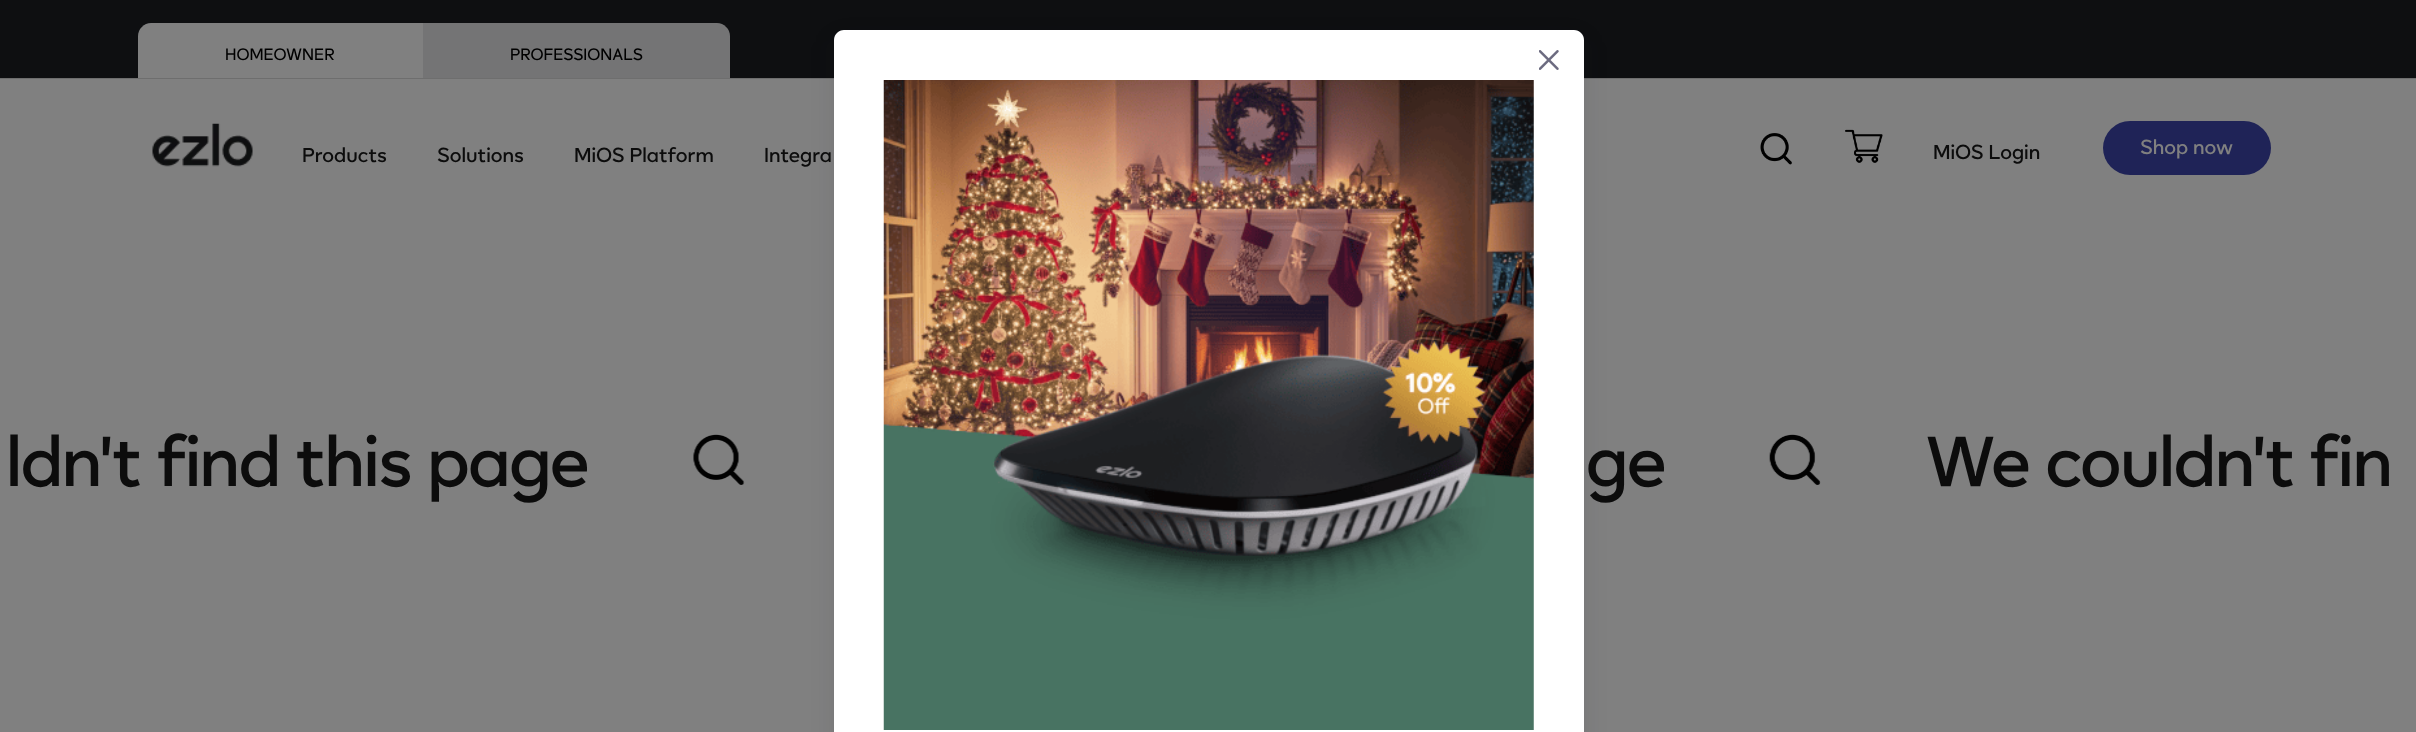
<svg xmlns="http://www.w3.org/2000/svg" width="2416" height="732">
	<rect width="100%" height="100%" fill="#808080" />
	<rect x="0" y="0" width="2416" height="78" fill="#0E0F11" />
	<rect x="0" y="78" width="2416" height="1" fill="#6E6E6E" />
	<path d="M151 23H423V78H138V36C138 29 144 23 151 23Z" fill="#808080" />
	<text x="225" y="60" font-family="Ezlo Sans" font-size="16.25" fill="#000000">HOMEOWNER</text>
	<path d="M423 23H717C724 23 730 29 730 36V78H423Z" fill="#747475" />
	<text x="510" y="60" font-family="Ezlo Sans" font-size="16.25" fill="#000000">PROFESSIONALS</text>
	<rect x="834" y="40" width="750" height="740" rx="10" fill="#121127" fill-opacity="0.1" filter="blur(12.5px)" />
	<path d="M844 30H1574C1579.5 30 1584 34.5 1584 40V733H834V40C834 34.5 838.5 30 844 30Z" fill="#FFFFFF" />
	<image x="1539" y="50" width="20" height="20" href="assets/img1.png" />
	<image x="883" y="80" width="651" height="650" href="assets/img2.png" />
	<image x="152" y="123" width="101" height="44" href="assets/img3.png" />
	<g font-family="Ezlo Sans" font-size="20" font-weight="500" fill="#0C0C0C">
		<text x="302" y="162">Products</text>
		<text x="437" y="162">Solutions</text>
		<text x="574" y="162">MiOS Platform</text>
		<text x="764" y="162">Integra</text>
	</g>
	<image x="1760" y="133" width="32" height="32" href="assets/img4.png" />
	<image x="1845" y="129" width="38" height="34" href="assets/img5.png" />
	<text x="1933" y="159" font-family="Ezlo Sans" font-size="20" font-weight="500" fill="#0C0C0C">MiOS Login</text>
	<rect x="2103" y="121" width="168" height="54" rx="27" fill="#1F2357" />
	<text x="2140" y="154" font-family="Ezlo Sans" font-size="20" font-weight="500" fill="#808080">Shop now</text>
	<text x="6" y="486" font-family="Ezlo Sans" font-size="70" font-weight="500" letter-spacing="-1.4" fill="#0C0C0C">ldn't find this page</text>
	<image x="693" y="434" width="52" height="51" href="assets/img6.png" />
	<text x="1586" y="486" font-family="Ezlo Sans" font-size="70" font-weight="500" letter-spacing="-1.4" fill="#0C0C0C">ge</text>
	<image x="1769" y="434" width="52" height="51" href="assets/img7.png" />
	<text x="1925" y="486" font-family="Ezlo Sans" font-size="70" font-weight="500" letter-spacing="-1.4" fill="#0C0C0C">We couldn't fin</text>
</svg>
